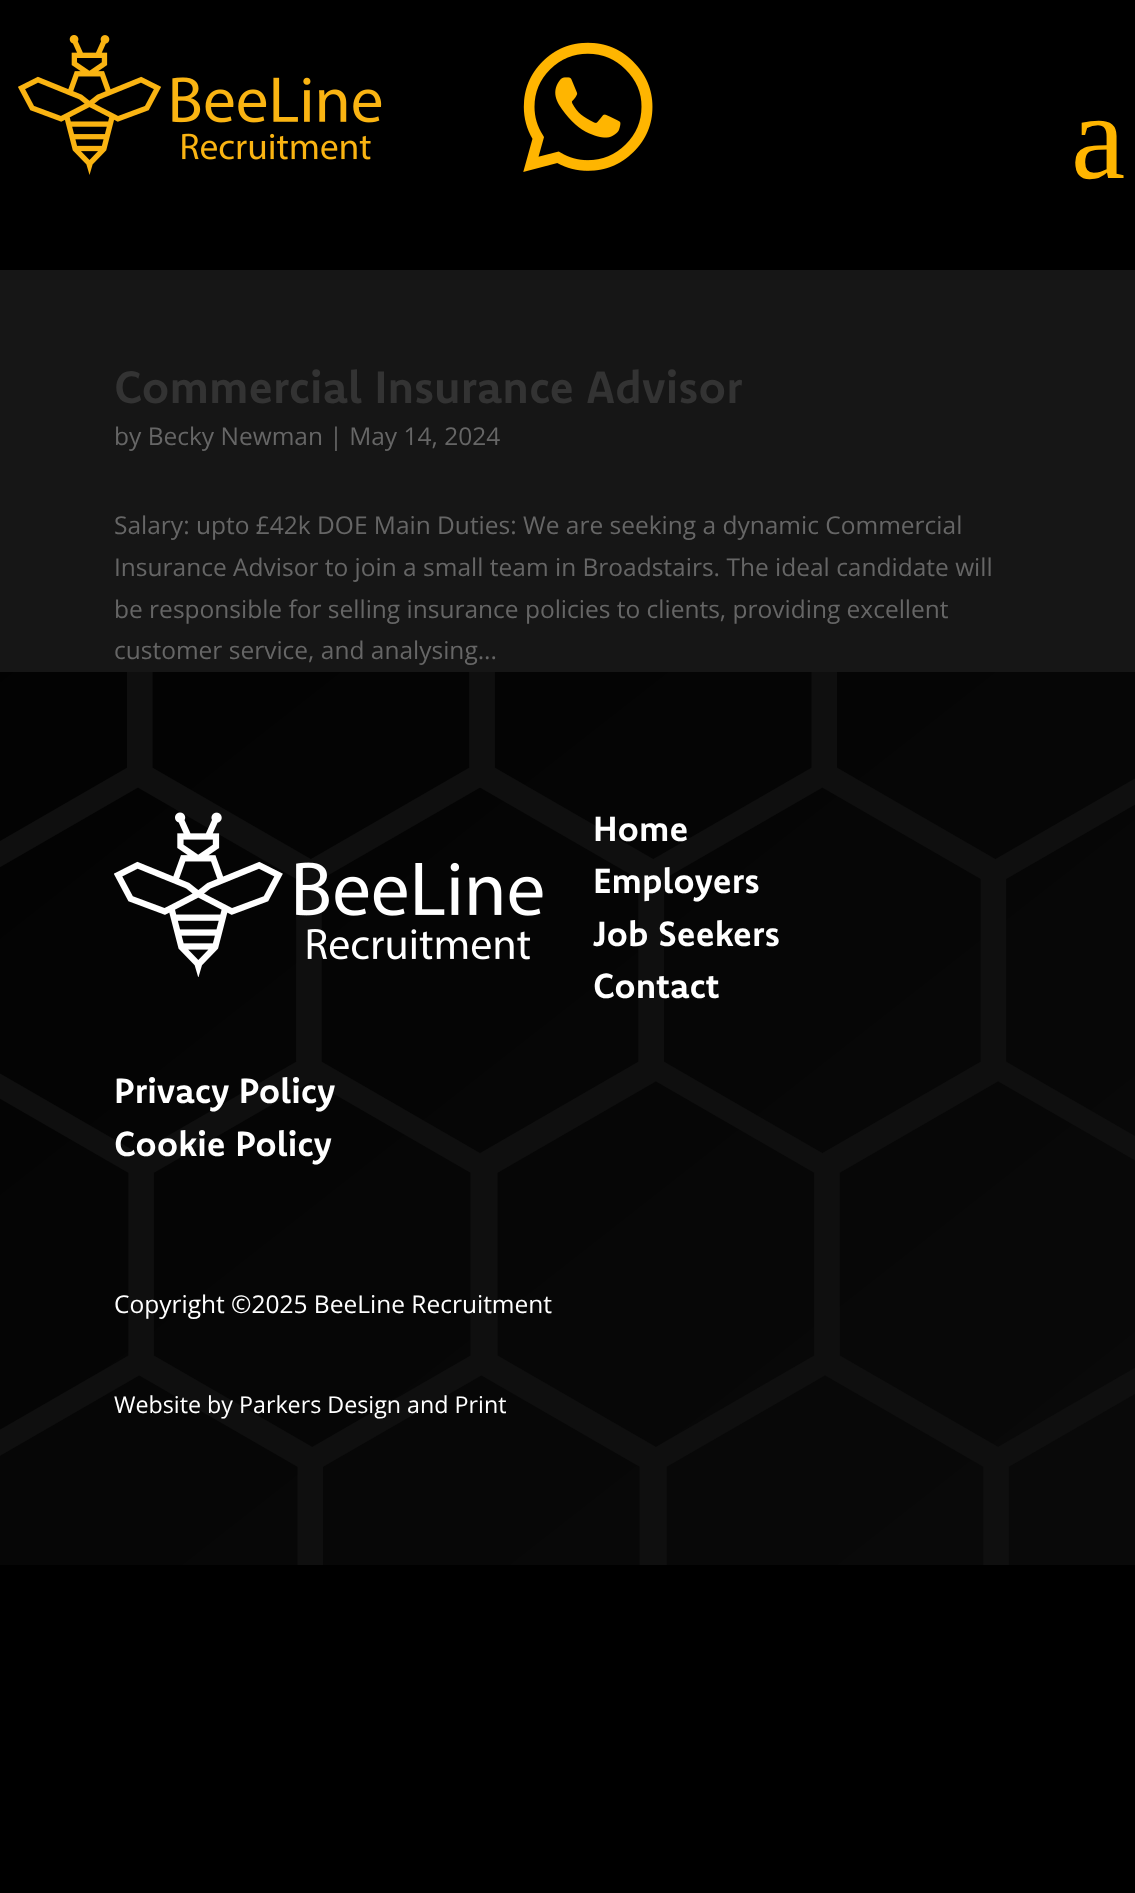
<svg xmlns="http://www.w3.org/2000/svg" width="1135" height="1893">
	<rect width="100%" height="100%" fill="#161616" />
	<rect x="0" y="0" width="1135" height="270" fill="#000000" />
	<image x="18" y="35" width="364" height="140" href="assets/img1.png" />
	<image x="523" y="42" width="130" height="130" href="assets/img2.png" />
	<text x="1071" y="178" font-family="Liberation Serif" font-size="122" fill="#FFB500">a</text>
	<text x="114" y="403" font-family="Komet" font-size="45.5" font-weight="700" fill="#333333">Commercial Insurance Advisor</text>
	<g font-family="Open Sans" font-size="24.5" fill="#666666">
		<text x="114" y="445">by Becky Newman | May 14, 2024</text>
		<text x="114" y="534">Salary: upto £42k DOE Main Duties: We are seeking a dynamic Commercial</text>
		<text x="114" y="576">Insurance Advisor to join a small team in Broadstairs. The ideal candidate will</text>
		<text x="114" y="618">be responsible for selling insurance policies to clients, providing excellent</text>
		<text x="114" y="659">customer service, and analysing...</text>
	</g>
	<path d="M0 672V1564H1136V672H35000V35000H-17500V672Z" fill="#000000" />
	<rect x="0" y="672" width="1135" height="893" fill="#0F0F0F" />
	<image x="0" y="672" width="1135" height="893" href="assets/img3.png" />
	<image x="114" y="812" width="429" height="165" href="assets/img4.png" />
	<g font-family="Komet" font-size="35" font-weight="700" fill="#FFFFFF">
		<text x="593" y="841">Home</text>
		<text x="593" y="893">Employers</text>
		<text x="593" y="946">Job Seekers</text>
		<text x="593" y="998">Contact</text>
		<text x="114" y="1103">Privacy Policy</text>
		<text x="114" y="1156">Cookie Policy</text>
	</g>
	<text x="114" y="1313" font-family="Open Sans" font-size="24.5" fill="#FFFFFF">Copyright ©2025 BeeLine Recruitment</text>
	<text x="114" y="1413" font-family="Open Sans" font-size="23.25" fill="#FFFFFF">Website by Parkers Design and Print</text>
</svg>
